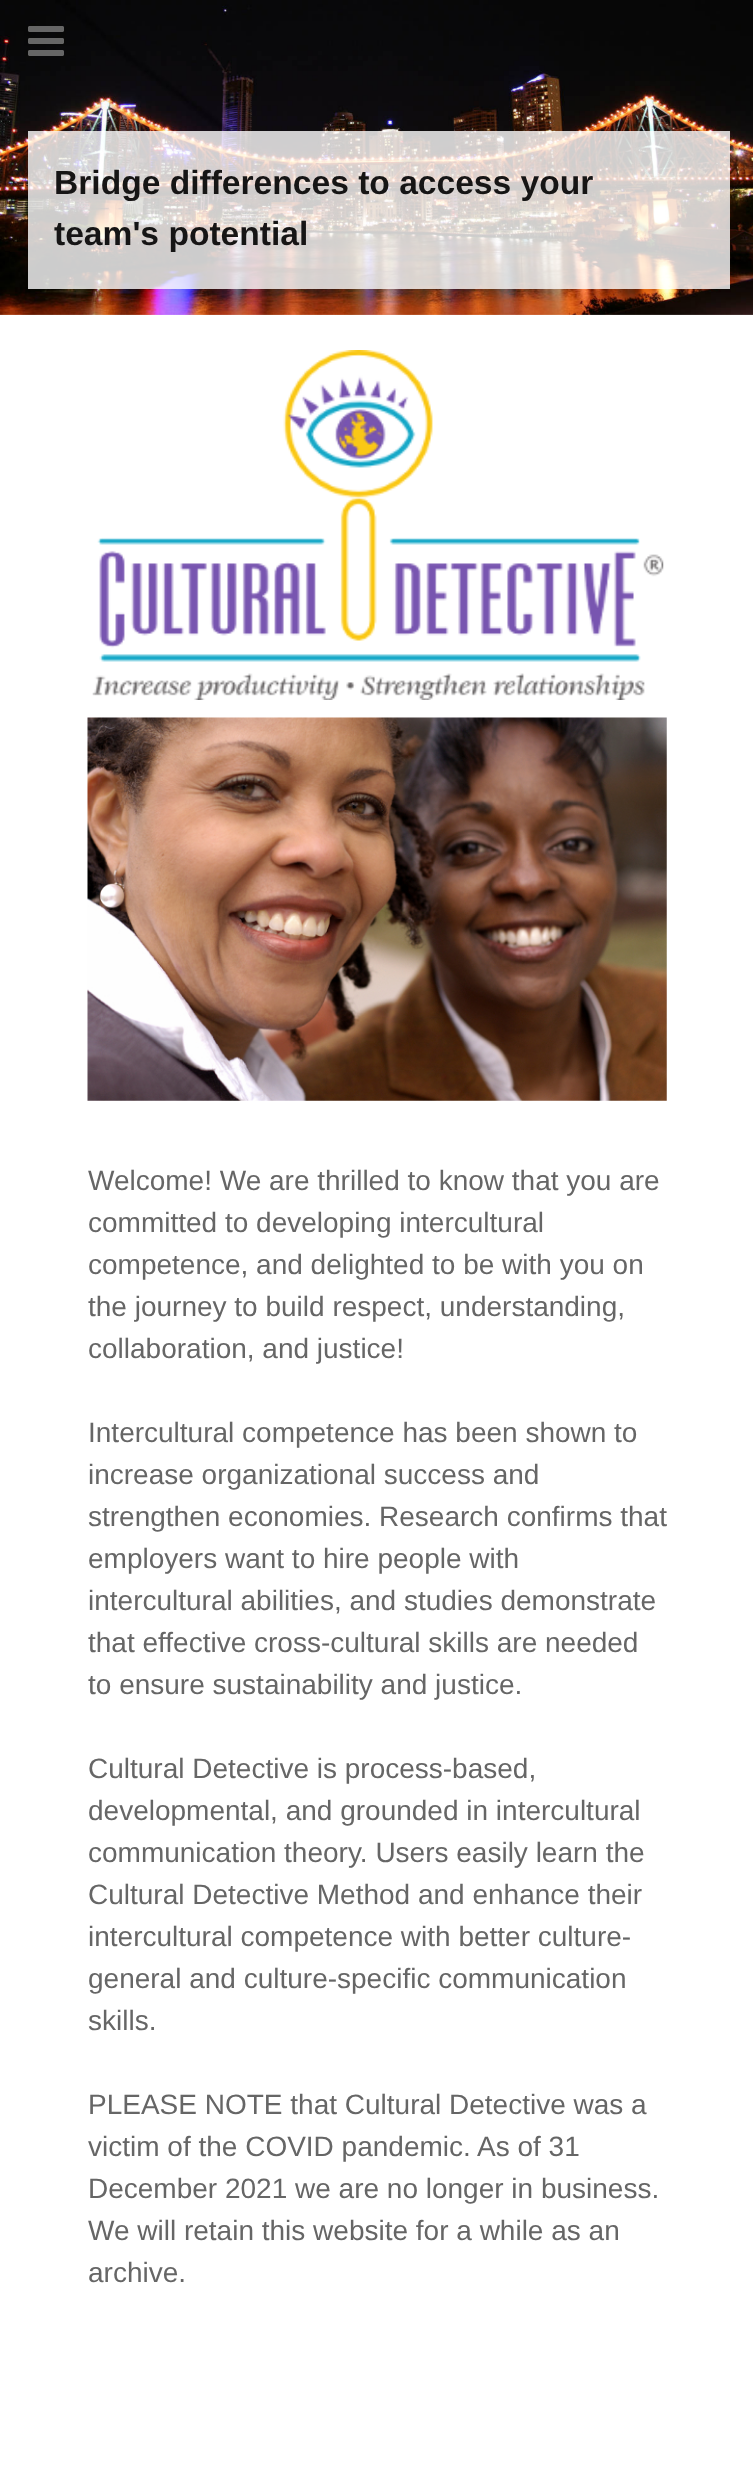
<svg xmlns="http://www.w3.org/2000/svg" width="753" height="2471">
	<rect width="100%" height="100%" fill="#FFFFFF" />
	<image x="0" y="0" width="753" height="315" href="assets/img2.png" />
	<image x="28" y="26" width="36" height="30" href="assets/img1.png" />
	<rect x="28" y="131" width="702" height="158" fill="#FFFFFF" fill-opacity="0.8" />
	<g font-family="Liberation Sans" font-size="33.6" font-weight="700" fill="#161515">
		<text x="54" y="194">Bridge differences to access your</text>
		<text x="54" y="245">team's potential</text>
	</g>
	<image x="92" y="350" width="572" height="350" href="assets/img3.png" />
	<image x="87" y="717" width="580" height="384" href="assets/img4.png" />
	<g font-family="Liberation Sans" font-size="28" fill="#666666">
		<text x="88" y="1190">Welcome! We are thrilled to know that you are</text>
		<text x="88" y="1232">committed to developing intercultural</text>
		<text x="88" y="1274">competence, and delighted to be with you on</text>
		<text x="88" y="1316">the journey to build respect, understanding,</text>
		<text x="88" y="1358">collaboration, and justice!</text>
		<text x="88" y="1442">Intercultural competence has been shown to</text>
		<text x="88" y="1484">increase organizational success and</text>
		<text x="88" y="1526">strengthen economies. Research confirms that</text>
		<text x="88" y="1568">employers want to hire people with</text>
		<text x="88" y="1610">intercultural abilities, and studies demonstrate</text>
		<text x="88" y="1652">that effective cross-cultural skills are needed</text>
		<text x="88" y="1694">to ensure sustainability and justice.</text>
		<text x="88" y="1778">Cultural Detective is process-based,</text>
		<text x="88" y="1820">developmental, and grounded in intercultural</text>
		<text x="88" y="1862">communication theory. Users easily learn the</text>
		<text x="88" y="1904">Cultural Detective Method and enhance their</text>
		<text x="88" y="1946">intercultural competence with better culture-</text>
		<text x="88" y="1988">general and culture-specific communication</text>
		<text x="88" y="2030">skills.</text>
		<text x="88" y="2114">PLEASE NOTE that Cultural Detective was a</text>
		<text x="88" y="2156">victim of the COVID pandemic. As of 31</text>
		<text x="88" y="2198">December 2021 we are no longer in business.</text>
		<text x="88" y="2240">We will retain this website for a while as an</text>
		<text x="88" y="2282">archive.</text>
	</g>
</svg>
